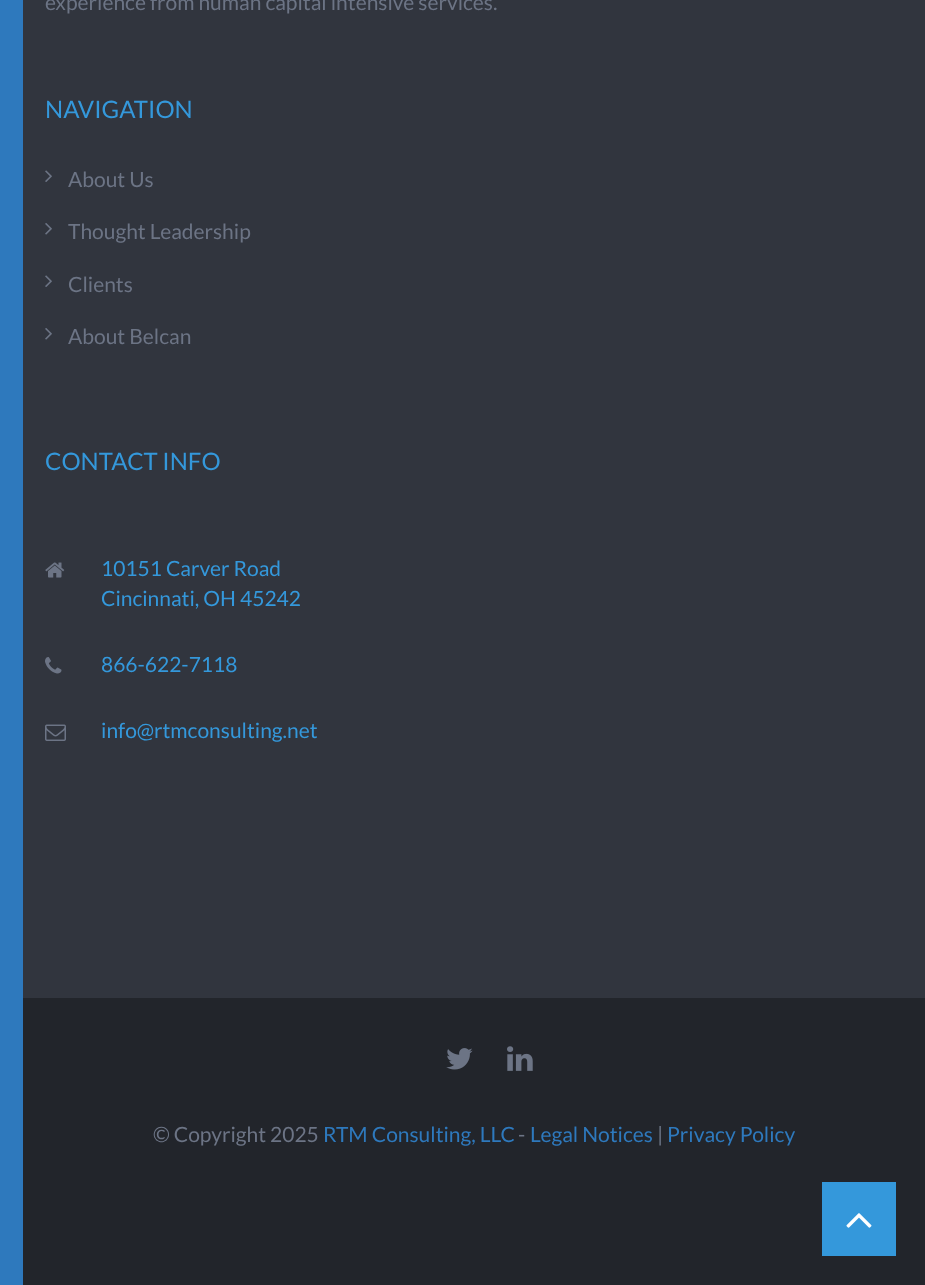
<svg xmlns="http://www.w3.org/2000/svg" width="925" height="1285">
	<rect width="100%" height="100%" fill="#2E79BD" />
	<rect x="23" y="0" width="902" height="998" fill="#31353E" />
	<text x="45" y="10" font-family="Lato" font-size="21" fill="#6C7485">experience from human capital intensive services.</text>
	<text x="45" y="118" font-family="Lato" font-size="24" fill="#3498DB">NAVIGATION</text>
	<image x="45" y="170" width="7" height="12" href="assets/img1.png" />
	<text x="68" y="187" font-family="Lato" font-size="21" fill="#6C7485">About Us</text>
	<image x="45" y="223" width="7" height="12" href="assets/img2.png" />
	<text x="68" y="239" font-family="Lato" font-size="21" fill="#6C7485">Thought Leadership</text>
	<image x="45" y="275" width="7" height="12" href="assets/img1.png" />
	<text x="68" y="292" font-family="Lato" font-size="21" fill="#6C7485">Clients</text>
	<image x="45" y="328" width="7" height="12" href="assets/img2.png" />
	<text x="68" y="344" font-family="Lato" font-size="21" fill="#6C7485">About Belcan</text>
	<text x="45" y="470" font-family="Lato" font-size="24" fill="#3498DB">CONTACT INFO</text>
	<image x="45" y="562" width="20" height="16" href="assets/img3.png" />
	<g font-family="Lato" font-size="21" fill="#3498DB">
		<text x="101" y="576">10151 Carver Road</text>
		<text x="101" y="606">Cincinnati, OH 45242</text>
	</g>
	<image x="45" y="657" width="17" height="17" href="assets/img4.png" />
	<text x="101" y="672" font-family="Lato" font-size="21" fill="#3498DB">866-622-7118</text>
	<image x="45" y="724" width="21" height="17" href="assets/img5.png" />
	<text x="101" y="738" font-family="Lato" font-size="21" fill="#3498DB">info@rtmconsulting.net</text>
	<rect x="23" y="998" width="902" height="287" fill="#22252B" />
	<image x="446" y="1048" width="27" height="22" href="assets/img6.png" />
	<image x="507" y="1046" width="26" height="25" href="assets/img7.png" />
	<text x="153" y="1142" font-family="Lato" font-size="21" fill="#6C7485">© Copyright 2025</text>
	<text x="323" y="1142" font-family="Lato" font-size="21" fill="#2E79BD">RTM Consulting, LLC</text>
	<text x="518" y="1142" font-family="Lato" font-size="21" fill="#6C7485">-</text>
	<text x="530" y="1142" font-family="Lato" font-size="21" fill="#2E79BD">Legal Notices</text>
	<text x="657" y="1142" font-family="Lato" font-size="21" fill="#6C7485">|</text>
	<text x="667" y="1142" font-family="Lato" font-size="21" fill="#2E79BD">Privacy Policy</text>
	<rect x="822" y="1182" width="74" height="74" fill="#3498DB" />
	<image x="846" y="1213" width="26" height="15" href="assets/img8.png" />
</svg>
